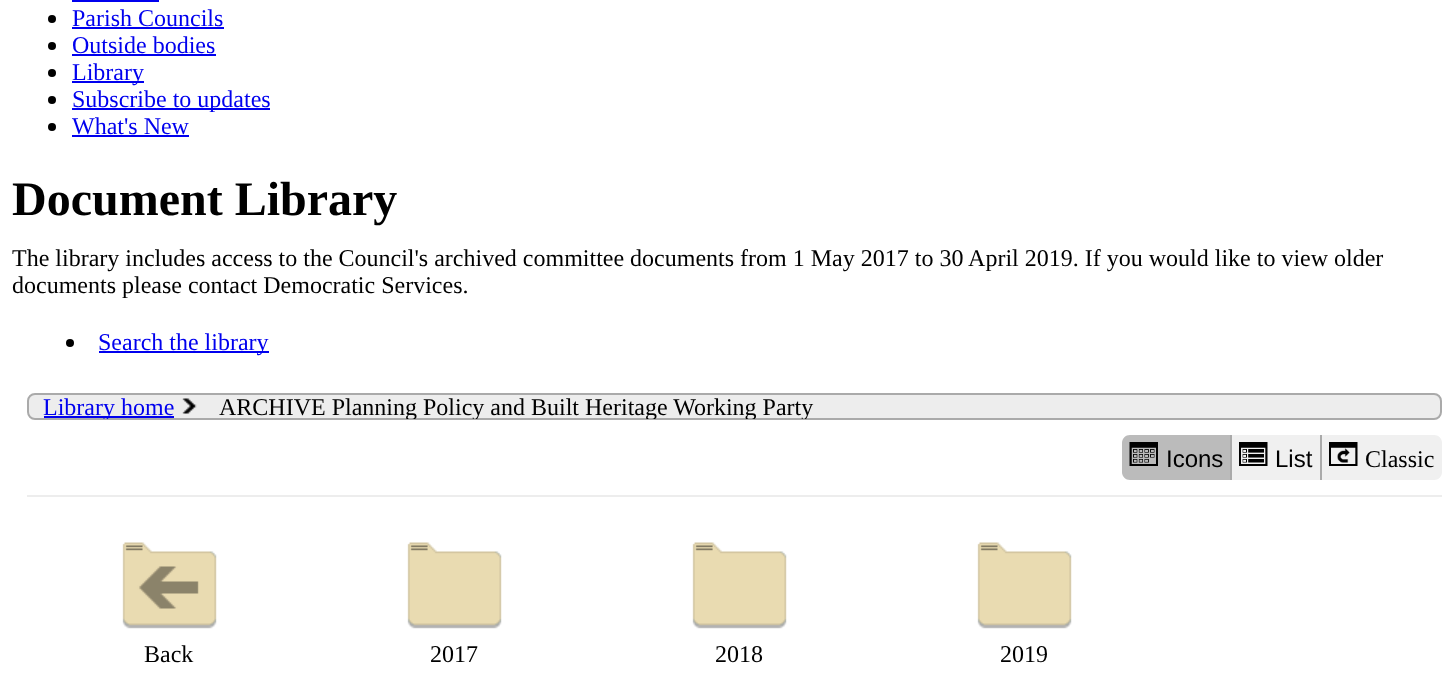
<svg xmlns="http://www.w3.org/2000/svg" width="1453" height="691">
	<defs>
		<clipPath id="clip1"><rect x="29" y="395" width="1411" height="24" rx="6" /></clipPath>
	</defs>
	<rect width="100%" height="100%" fill="#FFFFFF" />
	<rect x="72" y="0" width="87" height="2" fill="#0000EE" />
	<circle cx="52" cy="19" r="4" fill="#000000" />
	<text x="72" y="26" font-family="Liberation Serif" font-size="24" fill="#0000EE">Parish Councils</text>
	<rect x="72" y="27" width="152" height="2" fill="#0000EE" />
	<circle cx="52" cy="46" r="4" fill="#000000" />
	<text x="72" y="53" font-family="Liberation Serif" font-size="24" fill="#0000EE">Outside bodies</text>
	<rect x="72" y="54" width="144" height="2" fill="#0000EE" />
	<circle cx="52" cy="73" r="4" fill="#000000" />
	<rect x="72" y="81" width="72" height="2" fill="#0000EE" />
	<text x="72" y="80" font-family="Liberation Serif" font-size="24" fill="#0000EE">Library</text>
	<circle cx="52" cy="100" r="4" fill="#000000" />
	<rect x="72" y="108" width="198" height="2" fill="#0000EE" />
	<text x="72" y="107" font-family="Liberation Serif" font-size="24" fill="#0000EE">Subscribe to updates</text>
	<circle cx="52" cy="127" r="4" fill="#000000" />
	<text x="72" y="134" font-family="Liberation Serif" font-size="24" fill="#0000EE">What's New</text>
	<rect x="72" y="135" width="117" height="2" fill="#0000EE" />
	<text x="12" y="215" font-family="Liberation Serif" font-size="48" font-weight="700" fill="#000000">Document Library</text>
	<g font-family="Liberation Serif" font-size="24" fill="#000000">
		<text x="12" y="266">The library includes access to the Council's archived committee documents from 1 May 2017 to 30 April 2019. If you would like to view older</text>
		<text x="12" y="293">documents please contact Democratic Services.</text>
	</g>
	<circle cx="70" cy="343" r="4" fill="#000000" />
	<rect x="99" y="351" width="170" height="2" fill="#0000EE" />
	<text x="98" y="350" font-family="Liberation Serif" font-size="24" fill="#0000EE">Search the library</text>
	<rect x="28" y="394" width="1413" height="25" rx="7" fill="#EDEDED" stroke="#AAAAAA" stroke-width="2" />
	<rect x="44" y="416" width="130" height="2" fill="#0000EE" />
	<g clip-path="url(#clip1)">
		<text x="43" y="415" font-family="Liberation Serif" font-size="24" fill="#0000EE">Library home</text>
	</g>
	<image x="182" y="398" width="15" height="16" href="assets/img1.png" />
	<g clip-path="url(#clip1)">
		<text x="219" y="415" font-family="Liberation Serif" font-size="24" fill="#000000">ARCHIVE Planning Policy and Built Heritage Working Party</text>
	</g>
	<path d="M1130 435H1232V480H1130C1125.5 480 1122 476.5 1122 472V443C1122 438.5 1125.5 435 1130 435Z" fill="#BBBBBB" />
	<rect x="1230" y="435" width="2" height="45" fill="#AAAAAA" />
	<image x="1129" y="442" width="29" height="24" href="assets/img2.png" />
	<text x="1166" y="467" font-family="Liberation Sans" font-size="24" fill="#000000">Icons</text>
	<rect x="1232" y="435" width="88" height="45" fill="#F0F0F0" />
	<image x="1239" y="442" width="29" height="24" href="assets/img3.png" />
	<text x="1275" y="467" font-family="Liberation Sans" font-size="24" fill="#000000">List</text>
	<path d="M1320 435H1434C1438.5 435 1442 438.5 1442 443V472C1442 476.5 1438.5 480 1434 480H1320Z" fill="#F0F0F0" />
	<rect x="1320" y="435" width="2" height="45" fill="#AAAAAA" />
	<image x="1329" y="442" width="29" height="24" href="assets/img4.png" />
	<text x="1365" y="467" font-family="Liberation Serif" font-size="24" fill="#000000">Classic</text>
	<rect x="27" y="495" width="1415" height="2" fill="#EDEDED" />
	<image x="122" y="542" width="95" height="87" href="assets/img5.png" />
	<text x="144" y="662" font-family="Liberation Serif" font-size="24" fill="#000000">Back</text>
	<image x="407" y="542" width="95" height="87" href="assets/img6.png" />
	<text x="430" y="662" font-family="Liberation Serif" font-size="24" fill="#000000">2017</text>
	<image x="692" y="542" width="95" height="87" href="assets/img6.png" />
	<text x="715" y="662" font-family="Liberation Serif" font-size="24" fill="#000000">2018</text>
	<image x="977" y="542" width="95" height="87" href="assets/img7.png" />
	<text x="1000" y="662" font-family="Liberation Serif" font-size="24" fill="#000000">2019</text>
</svg>
